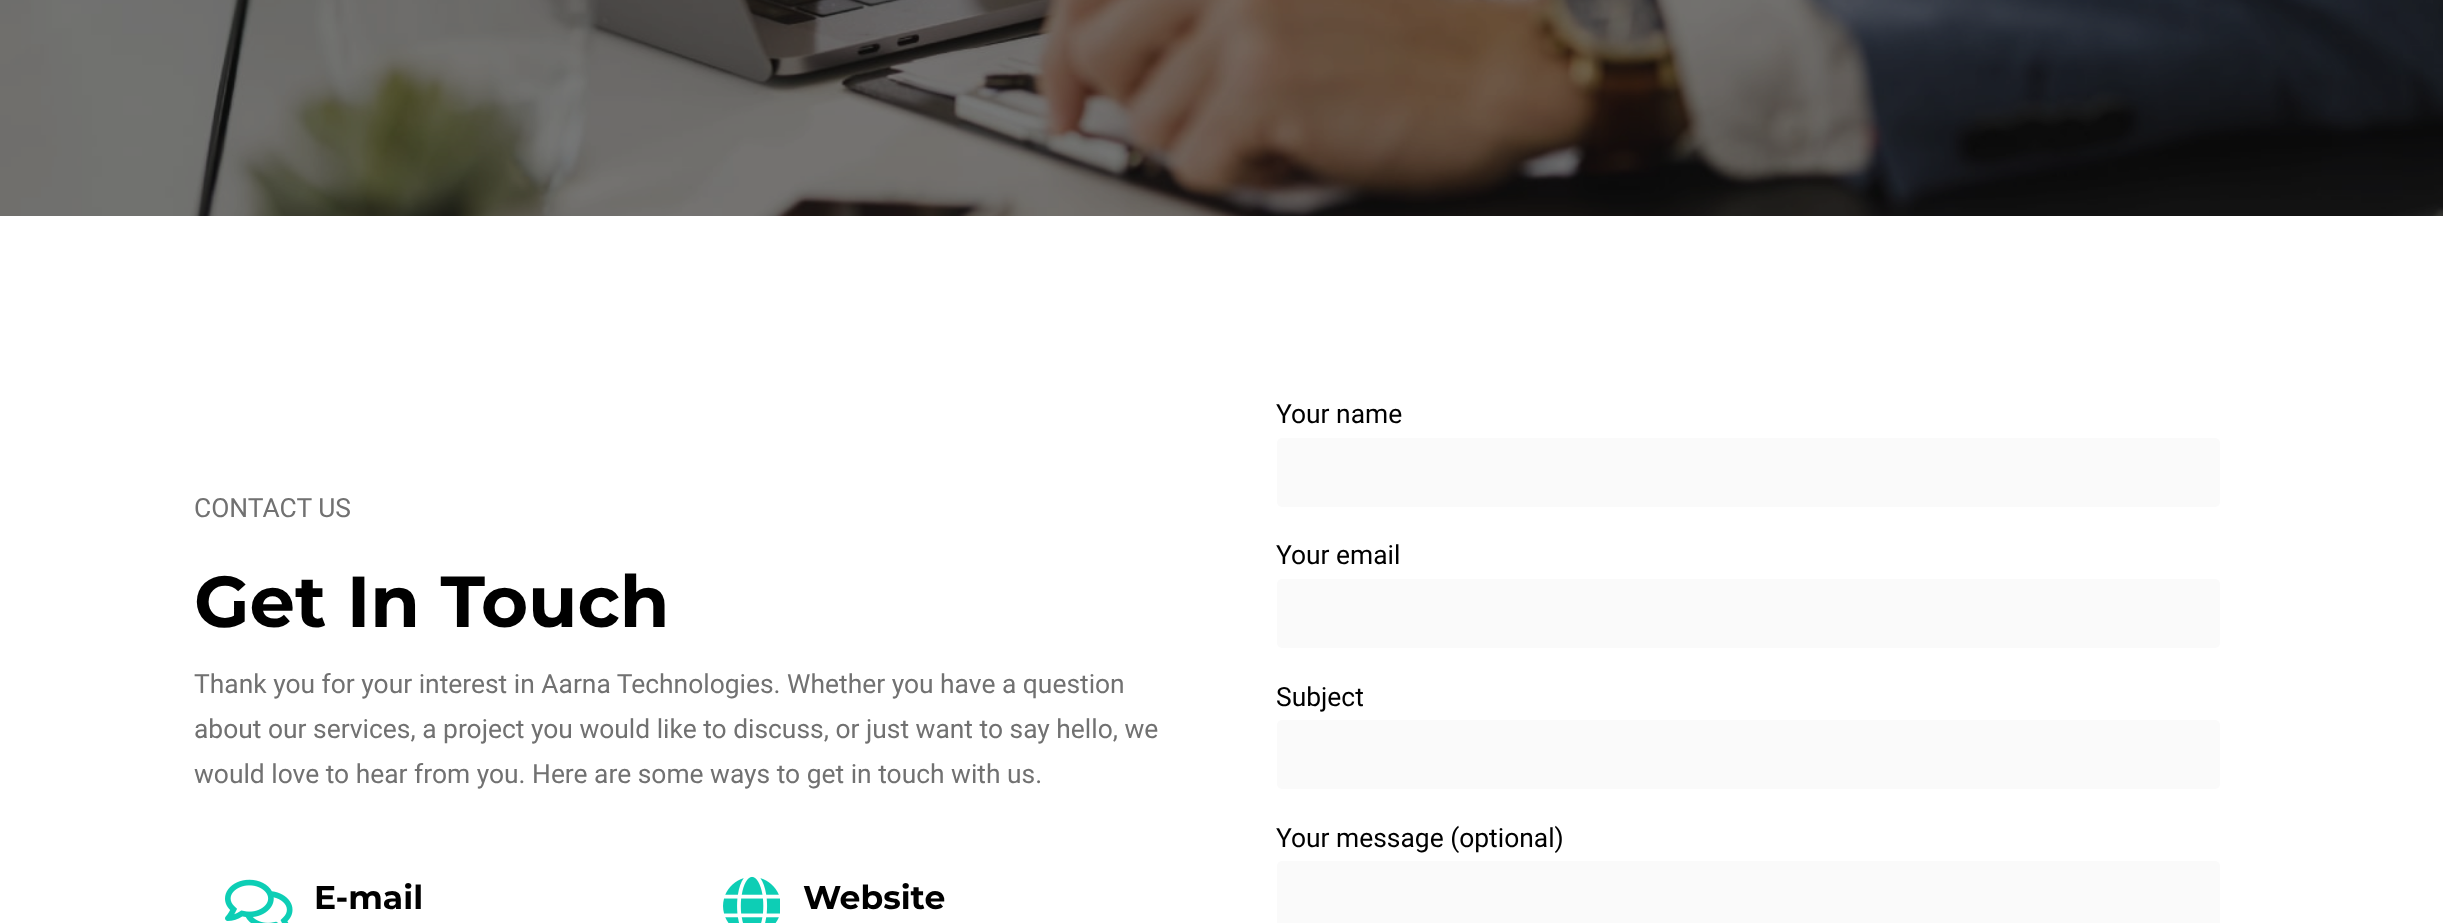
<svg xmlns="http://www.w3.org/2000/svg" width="2443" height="923">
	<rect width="100%" height="100%" fill="#FFFFFF" />
	<image x="0" y="0" width="2443" height="216" href="assets/img1.png" />
	<text x="194" y="517" font-family="Roboto" font-size="26.4" fill="#717171">CONTACT US</text>
	<text x="194" y="627" font-family="Montserrat" font-size="72" font-weight="700" fill="#000000">Get In Touch</text>
	<g font-family="Roboto" font-size="26.4" fill="#717171">
		<text x="194" y="693">Thank you for your interest in Aarna Technologies. Whether you have a question</text>
		<text x="194" y="738">about our services, a project you would like to discuss, or just want to say hello, we</text>
		<text x="194" y="783">would love to hear from you. Here are some ways to get in touch with us.</text>
	</g>
	<image x="225" y="879" width="68" height="44" href="assets/img2.png" />
	<text x="314" y="909" font-family="Montserrat" font-size="33" font-weight="700" fill="#000000">E-mail</text>
	<image x="723" y="876" width="57" height="47" href="assets/img3.png" />
	<text x="803" y="909" font-family="Montserrat" font-size="33" font-weight="700" fill="#000000">Website</text>
	<text x="1276" y="423" font-family="Roboto" font-size="26.4" fill="#000000">Your name</text>
	<rect x="1277" y="438" width="943" height="69" rx="5" fill="#FAFAFA" />
	<text x="1276" y="564" font-family="Roboto" font-size="26.4" fill="#000000">Your email</text>
	<rect x="1277" y="579" width="943" height="69" rx="5" fill="#FAFAFA" />
	<text x="1276" y="706" font-family="Roboto" font-size="26.4" fill="#000000">Subject</text>
	<rect x="1277" y="720" width="943" height="69" rx="5" fill="#FAFAFA" />
	<text x="1276" y="847" font-family="Roboto" font-size="26.4" fill="#000000">Your message (optional)</text>
	<rect x="1277" y="861" width="943" height="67" rx="5" fill="#FAFAFA" />
</svg>
